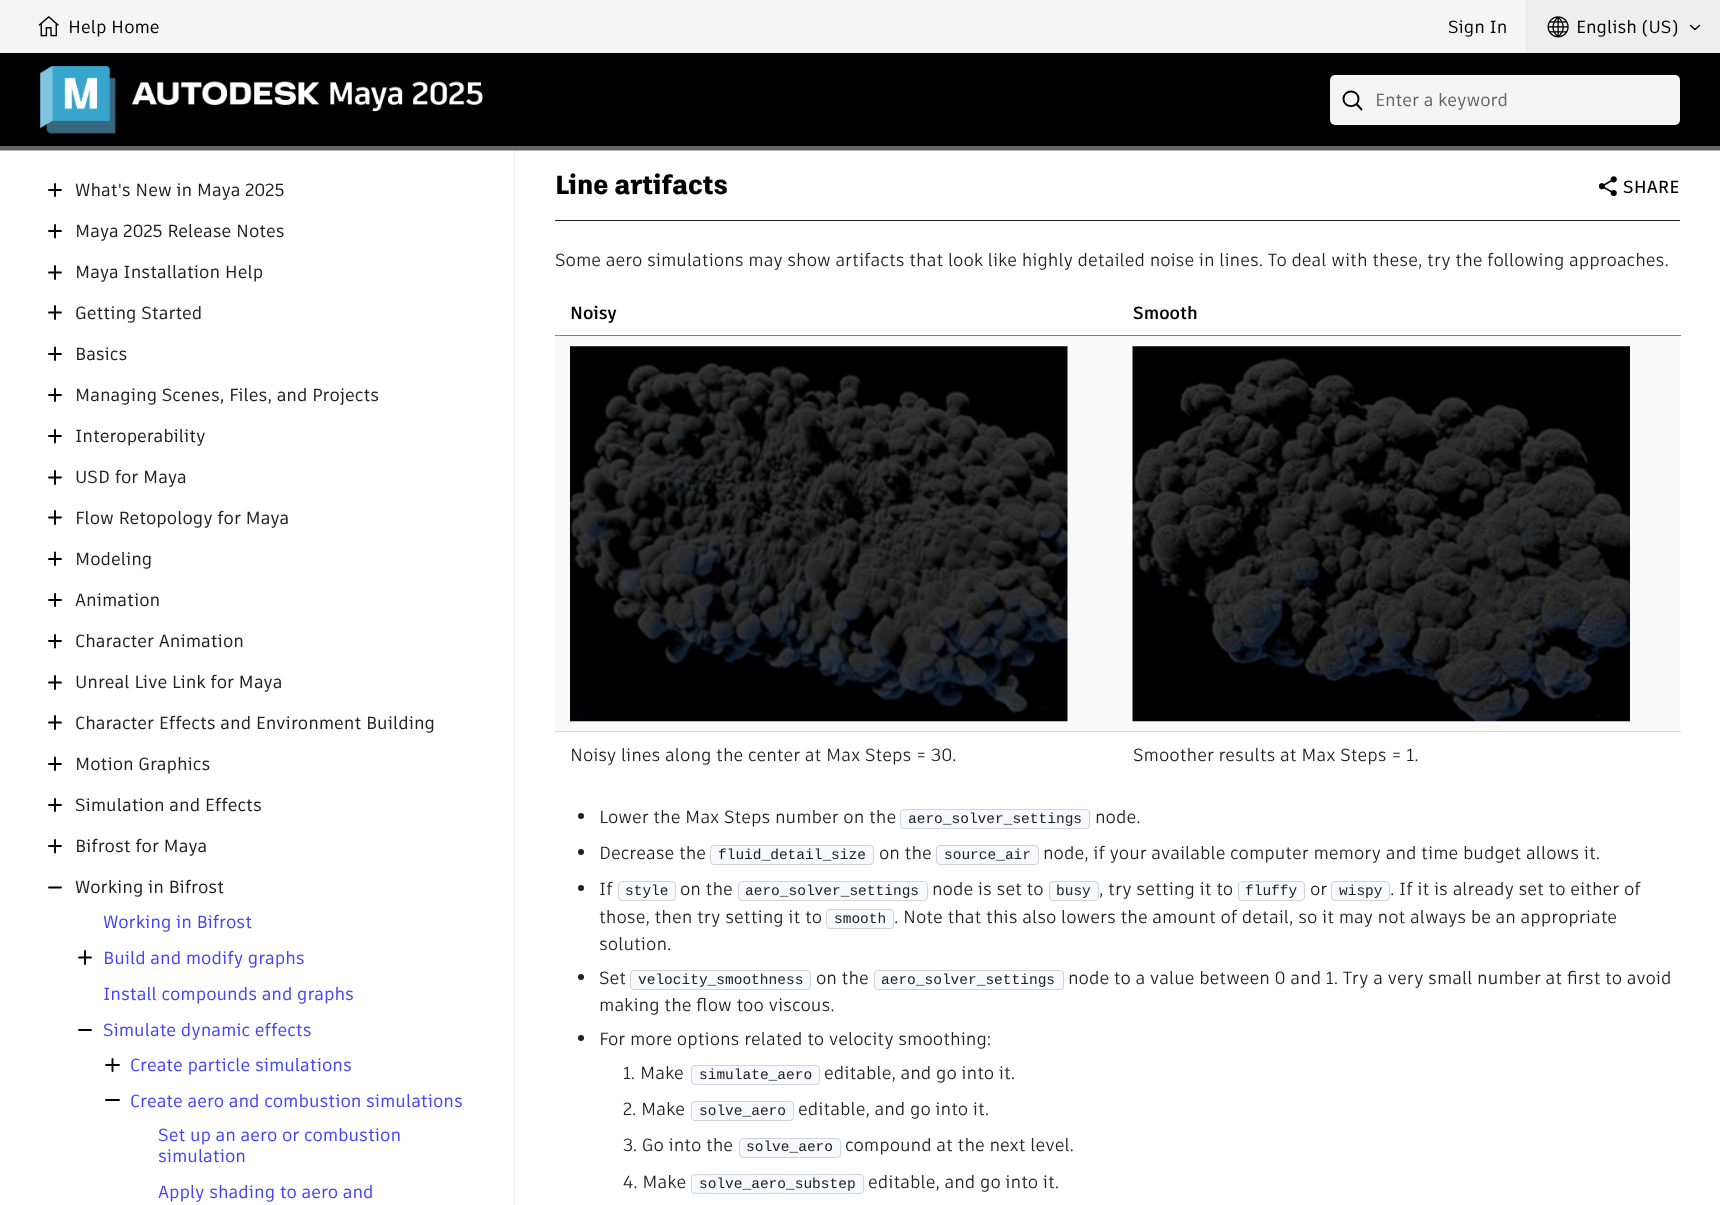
<svg xmlns="http://www.w3.org/2000/svg" width="1720" height="1205">
	<rect width="100%" height="100%" fill="#FFFFFF" />
	<rect x="514" y="150" width="1" height="1055" fill="#EEEEEE" />
	<rect x="0" y="54" width="1720" height="97" fill="#000000" fill-opacity="0.3" filter="blur(0.5px)" />
	<rect x="0" y="0" width="1526" height="53" fill="#F4F4F4" />
	<image x="38" y="16" width="21" height="21" href="assets/img1.png" />
	<g font-family="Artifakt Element" font-size="17.5" font-weight="500" fill="#000000">
		<text x="68" y="33">Help Home</text>
		<text x="1448" y="33">Sign In</text>
	</g>
	<rect x="1527" y="0" width="193" height="53" fill="#EEEEEE" />
	<rect x="1526" y="0" width="1" height="53" fill="#E4E4E4" />
	<image x="1547" y="16" width="22" height="22" href="assets/img2.png" />
	<text x="1576" y="33" font-family="Artifakt Element" font-size="17.5" font-weight="500" fill="#000000">English (US)</text>
	<path d="M1699.5 25.5L1695 29.5L1690.5 25.5" fill="none" stroke="#000000" stroke-width="1.4" stroke-linecap="round" stroke-linejoin="round" />
	<rect x="0" y="53" width="1720" height="93" fill="#000000" />
	<rect x="0" y="146" width="1720" height="4" fill="#666666" />
	<image x="40" y="66" width="443" height="68" href="assets/img3.png" />
	<rect x="1330" y="75" width="350" height="50" rx="5" fill="#F5F5F5" />
	<path d="M1356.5 104L1362 110M1358.5 99C1358.5 108.5 1343.5 108.5 1343.5 99C1343.5 89 1358.5 89 1358.5 99Z" fill="none" stroke="#000000" stroke-width="1.9" />
	<text x="1375" y="106" font-family="Artifakt Element" font-size="17.5" font-weight="500" fill="#666666">Enter a keyword</text>
	<path d="M55 184V196M49 190H61" fill="none" stroke="#000000" stroke-width="1.9" stroke-linecap="round" />
	<text x="75" y="196" font-family="Artifakt Element" font-size="17.5" font-weight="500" fill="#212121">What's New in Maya 2025</text>
	<path d="M55 225V237.5M49 231H61" fill="none" stroke="#000000" stroke-width="1.9" stroke-linecap="round" />
	<text x="75" y="237" font-family="Artifakt Element" font-size="17.5" font-weight="500" fill="#212121">Maya 2025 Release Notes</text>
	<path d="M55 266V279M49 272.5H61" fill="none" stroke="#000000" stroke-width="1.9" stroke-linecap="round" />
	<text x="75" y="278" font-family="Artifakt Element" font-size="17.5" font-weight="500" fill="#212121">Maya Installation Help</text>
	<path d="M55 306V319M49 312.5H61" fill="none" stroke="#000000" stroke-width="1.9" stroke-linecap="round" />
	<text x="75" y="319" font-family="Artifakt Element" font-size="17.5" font-weight="500" fill="#212121">Getting Started</text>
	<path d="M55 347.5V360M49 354H61" fill="none" stroke="#000000" stroke-width="1.9" stroke-linecap="round" />
	<text x="75" y="360" font-family="Artifakt Element" font-size="17.5" font-weight="500" fill="#212121">Basics</text>
	<path d="M55 389V401M49 395H61" fill="none" stroke="#000000" stroke-width="1.9" stroke-linecap="round" />
	<text x="75" y="401" font-family="Artifakt Element" font-size="17.5" font-weight="500" fill="#212121">Managing Scenes, Files, and Projects</text>
	<path d="M55 430V442.5M49 436H61" fill="none" stroke="#000000" stroke-width="1.9" stroke-linecap="round" />
	<text x="75" y="442" font-family="Artifakt Element" font-size="17.5" font-weight="500" fill="#212121">Interoperability</text>
	<path d="M55 471V484M49 477.5H61" fill="none" stroke="#000000" stroke-width="1.9" stroke-linecap="round" />
	<text x="75" y="483" font-family="Artifakt Element" font-size="17.5" font-weight="500" fill="#212121">USD for Maya</text>
	<path d="M55 511V524M49 517.5H61" fill="none" stroke="#000000" stroke-width="1.9" stroke-linecap="round" />
	<text x="75" y="524" font-family="Artifakt Element" font-size="17.5" font-weight="500" fill="#212121">Flow Retopology for Maya</text>
	<path d="M55 552.5V565M49 559H61" fill="none" stroke="#000000" stroke-width="1.9" stroke-linecap="round" />
	<text x="75" y="565" font-family="Artifakt Element" font-size="17.5" font-weight="500" fill="#212121">Modeling</text>
	<path d="M55 594V606M49 600H61" fill="none" stroke="#000000" stroke-width="1.9" stroke-linecap="round" />
	<text x="75" y="606" font-family="Artifakt Element" font-size="17.5" font-weight="500" fill="#212121">Animation</text>
	<path d="M55 635V647.5M49 641H61" fill="none" stroke="#000000" stroke-width="1.9" stroke-linecap="round" />
	<text x="75" y="647" font-family="Artifakt Element" font-size="17.5" font-weight="500" fill="#212121">Character Animation</text>
	<path d="M55 676V689M49 682.5H61" fill="none" stroke="#000000" stroke-width="1.9" stroke-linecap="round" />
	<text x="75" y="688" font-family="Artifakt Element" font-size="17.5" font-weight="500" fill="#212121">Unreal Live Link for Maya</text>
	<path d="M55 716V729M49 722.5H61" fill="none" stroke="#000000" stroke-width="1.9" stroke-linecap="round" />
	<text x="75" y="729" font-family="Artifakt Element" font-size="17.5" font-weight="500" fill="#212121">Character Effects and Environment Building</text>
	<path d="M55 757.5V770M49 764H61" fill="none" stroke="#000000" stroke-width="1.9" stroke-linecap="round" />
	<text x="75" y="770" font-family="Artifakt Element" font-size="17.5" font-weight="500" fill="#212121">Motion Graphics</text>
	<path d="M55 799V811M49 805H61" fill="none" stroke="#000000" stroke-width="1.9" stroke-linecap="round" />
	<text x="75" y="811" font-family="Artifakt Element" font-size="17.5" font-weight="500" fill="#212121">Simulation and Effects</text>
	<path d="M55 840V852.5M49 846H61" fill="none" stroke="#000000" stroke-width="1.9" stroke-linecap="round" />
	<text x="75" y="852" font-family="Artifakt Element" font-size="17.5" font-weight="500" fill="#212121">Bifrost for Maya</text>
	<path d="M49 887.5H61" fill="none" stroke="#000000" stroke-width="1.9" stroke-linecap="round" />
	<text x="75" y="893" font-family="Artifakt Element" font-size="17.5" font-weight="500" fill="#212121">Working in Bifrost</text>
	<text x="103" y="928" font-family="Artifakt Element" font-size="17.5" font-weight="500" fill="#4444F8">Working in Bifrost</text>
	<path d="M85 951V964M79 957.5H91" fill="none" stroke="#000000" stroke-width="1.9" stroke-linecap="round" />
	<g font-family="Artifakt Element" font-size="17.5" font-weight="500" fill="#4444F8">
		<text x="103" y="964">Build and modify graphs</text>
		<text x="103" y="1000">Install compounds and graphs</text>
	</g>
	<path d="M79 1030H91" fill="none" stroke="#000000" stroke-width="1.9" stroke-linecap="round" />
	<text x="103" y="1036" font-family="Artifakt Element" font-size="17.5" font-weight="500" fill="#4444F8">Simulate dynamic effects</text>
	<path d="M112.5 1059V1071M106 1065H119" fill="none" stroke="#000000" stroke-width="1.9" stroke-linecap="round" />
	<text x="130" y="1071" font-family="Artifakt Element" font-size="17.5" font-weight="500" fill="#4444F8">Create particle simulations</text>
	<path d="M106 1100H119" fill="none" stroke="#000000" stroke-width="1.9" stroke-linecap="round" />
	<g font-family="Artifakt Element" font-size="17.5" font-weight="500" fill="#4444F8">
		<text x="130" y="1107">Create aero and combustion simulations</text>
		<text x="158" y="1141">Set up an aero or combustion</text>
		<text x="158" y="1162">simulation</text>
		<text x="158" y="1198">Apply shading to aero and</text>
	</g>
	<rect x="555" y="220" width="1125" height="1" fill="#212121" />
	<text x="555" y="194" font-family="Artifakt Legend" font-size="26.25" font-weight="800" fill="#000000">Line artifacts</text>
	<text x="555" y="266" font-family="Artifakt Element" font-size="17.5" fill="#212121">Some aero simulations may show artifacts that look like highly detailed noise in lines. To deal with these, try the following approaches.</text>
	<rect x="555" y="335" width="1126" height="1" fill="#808080" />
	<g font-family="Artifakt Element" font-size="17.5" font-weight="700" fill="#000000">
		<text x="570" y="319">Noisy</text>
		<text x="1133" y="319">Smooth</text>
	</g>
	<rect x="555" y="336" width="1125" height="397" fill="#F9F9F9" />
	<rect x="555" y="731" width="1126" height="1" fill="#D6D6D6" />
	<image x="570" y="346" width="498" height="376" href="assets/img4.png" />
	<image x="1132" y="346" width="498" height="376" href="assets/img5.png" />
	<g font-family="Artifakt Element" font-size="17.5" fill="#212121">
		<text x="570" y="761">Noisy lines along the center at Max Steps = 30.</text>
		<text x="1133" y="761">Smoother results at Max Steps = 1.</text>
	</g>
	<circle cx="581" cy="816" r="3" fill="#212121" />
	<text x="599" y="823" font-family="Artifakt Element" font-size="17.5" fill="#212121">Lower the Max Steps number on the</text>
	<rect x="900.5" y="809.5" width="189" height="19" rx="3.5" fill="#F8F8FF" stroke="#D3D3D3" />
	<text x="908" y="823" font-family="Liberation Mono" font-size="14.5" fill="#212121">aero_solver_settings</text>
	<text x="1095" y="823" font-family="Artifakt Element" font-size="17.5" fill="#212121">node.</text>
	<circle cx="581" cy="852" r="3" fill="#212121" />
	<text x="599" y="859" font-family="Artifakt Element" font-size="17.5" fill="#212121">Decrease the</text>
	<rect x="710.5" y="845.5" width="163" height="19" rx="3.5" fill="#F8F8FF" stroke="#D3D3D3" />
	<text x="718" y="859" font-family="Liberation Mono" font-size="14.5" fill="#212121">fluid_detail_size</text>
	<text x="879" y="859" font-family="Artifakt Element" font-size="17.5" fill="#212121">on the</text>
	<rect x="936.5" y="845.5" width="102" height="19" rx="3.5" fill="#F8F8FF" stroke="#D3D3D3" />
	<text x="944" y="859" font-family="Liberation Mono" font-size="14.5" fill="#212121">source_air</text>
	<text x="1043" y="859" font-family="Artifakt Element" font-size="17.5" fill="#212121">node, if your available computer memory and time budget allows it.</text>
	<circle cx="581" cy="888" r="3" fill="#212121" />
	<text x="599" y="895" font-family="Artifakt Element" font-size="17.5" fill="#212121">If</text>
	<rect x="618.5" y="881.5" width="57" height="19" rx="3.5" fill="#F8F8FF" stroke="#D3D3D3" />
	<text x="625" y="895" font-family="Liberation Mono" font-size="14.5" fill="#212121">style</text>
	<text x="680" y="895" font-family="Artifakt Element" font-size="17.5" fill="#212121">on the</text>
	<rect x="738.5" y="881.5" width="189" height="19" rx="3.5" fill="#F8F8FF" stroke="#D3D3D3" />
	<text x="745" y="895" font-family="Liberation Mono" font-size="14.5" fill="#212121">aero_solver_settings</text>
	<text x="932" y="895" font-family="Artifakt Element" font-size="17.5" fill="#212121">node is set to</text>
	<rect x="1049.5" y="881.5" width="49" height="19" rx="3.5" fill="#F8F8FF" stroke="#D3D3D3" />
	<text x="1056" y="895" font-family="Liberation Mono" font-size="14.5" fill="#212121">busy</text>
	<text x="1099" y="895" font-family="Artifakt Element" font-size="17.5" fill="#212121">, try setting it to</text>
	<rect x="1238.5" y="881.5" width="66" height="19" rx="3.5" fill="#F8F8FF" stroke="#D3D3D3" />
	<text x="1245" y="895" font-family="Liberation Mono" font-size="14.5" fill="#212121">fluffy</text>
	<text x="1310" y="895" font-family="Artifakt Element" font-size="17.5" fill="#212121">or</text>
	<rect x="1331.5" y="881.5" width="58" height="19" rx="3.5" fill="#F8F8FF" stroke="#D3D3D3" />
	<text x="1339" y="895" font-family="Liberation Mono" font-size="14.5" fill="#212121">wispy</text>
	<g font-family="Artifakt Element" font-size="17.5" fill="#212121">
		<text x="1390" y="895">. If it is already set to either of</text>
		<text x="599" y="923">those, then try setting it to</text>
	</g>
	<rect x="826.5" y="909.5" width="67" height="19" rx="3.5" fill="#F8F8FF" stroke="#D3D3D3" />
	<text x="834" y="923" font-family="Liberation Mono" font-size="14.5" fill="#212121">smooth</text>
	<g font-family="Artifakt Element" font-size="17.5" fill="#212121">
		<text x="894" y="923">. Note that this also lowers the amount of detail, so it may not always be an appropriate</text>
		<text x="599" y="950">solution.</text>
	</g>
	<circle cx="581" cy="977" r="3" fill="#212121" />
	<text x="599" y="984" font-family="Artifakt Element" font-size="17.5" fill="#212121">Set</text>
	<rect x="630.5" y="970.5" width="180" height="19" rx="3.5" fill="#F8F8FF" stroke="#D3D3D3" />
	<text x="638" y="984" font-family="Liberation Mono" font-size="14.5" fill="#212121">velocity_smoothness</text>
	<text x="816" y="984" font-family="Artifakt Element" font-size="17.5" fill="#212121">on the</text>
	<rect x="874.5" y="970.5" width="189" height="19" rx="3.5" fill="#F8F8FF" stroke="#D3D3D3" />
	<text x="881" y="984" font-family="Liberation Mono" font-size="14.5" fill="#212121">aero_solver_settings</text>
	<g font-family="Artifakt Element" font-size="17.5" fill="#212121">
		<text x="1068" y="984">node to a value between 0 and 1. Try a very small number at first to avoid</text>
		<text x="599" y="1011">making the flow too viscous.</text>
	</g>
	<circle cx="581" cy="1038" r="3" fill="#212121" />
	<g font-family="Artifakt Element" font-size="17.5" fill="#212121">
		<text x="599" y="1045">For more options related to velocity smoothing:</text>
		<text x="623" y="1079">1. Make</text>
	</g>
	<rect x="691.5" y="1065.5" width="128" height="19" rx="3.5" fill="#F8F8FF" stroke="#D3D3D3" />
	<text x="699" y="1079" font-family="Liberation Mono" font-size="14.5" fill="#212121">simulate_aero</text>
	<g font-family="Artifakt Element" font-size="17.5" fill="#212121">
		<text x="824" y="1079">editable, and go into it.</text>
		<text x="623" y="1115">2. Make</text>
	</g>
	<rect x="691.5" y="1101.5" width="102" height="19" rx="3.5" fill="#F8F8FF" stroke="#D3D3D3" />
	<text x="699" y="1115" font-family="Liberation Mono" font-size="14.5" fill="#212121">solve_aero</text>
	<g font-family="Artifakt Element" font-size="17.5" fill="#212121">
		<text x="798" y="1115">editable, and go into it.</text>
		<text x="623" y="1151">3. Go into the</text>
	</g>
	<rect x="739.5" y="1138.5" width="101" height="19" rx="3.5" fill="#F8F8FF" stroke="#D3D3D3" />
	<text x="746" y="1151" font-family="Liberation Mono" font-size="14.5" fill="#212121">solve_aero</text>
	<g font-family="Artifakt Element" font-size="17.5" fill="#212121">
		<text x="845" y="1151">compound at the next level.</text>
		<text x="623" y="1188">4. Make</text>
	</g>
	<rect x="691.5" y="1174.5" width="172" height="19" rx="3.5" fill="#F8F8FF" stroke="#D3D3D3" />
	<text x="699" y="1188" font-family="Liberation Mono" font-size="14.5" fill="#212121">solve_aero_substep</text>
	<text x="868" y="1188" font-family="Artifakt Element" font-size="17.5" fill="#212121">editable, and go into it.</text>
	<image x="1599" y="176" width="18" height="20" href="assets/img6.png" />
	<text x="1623" y="193" font-family="Artifakt Element" font-size="17.5" font-weight="600" fill="#000000">SHARE</text>
</svg>
